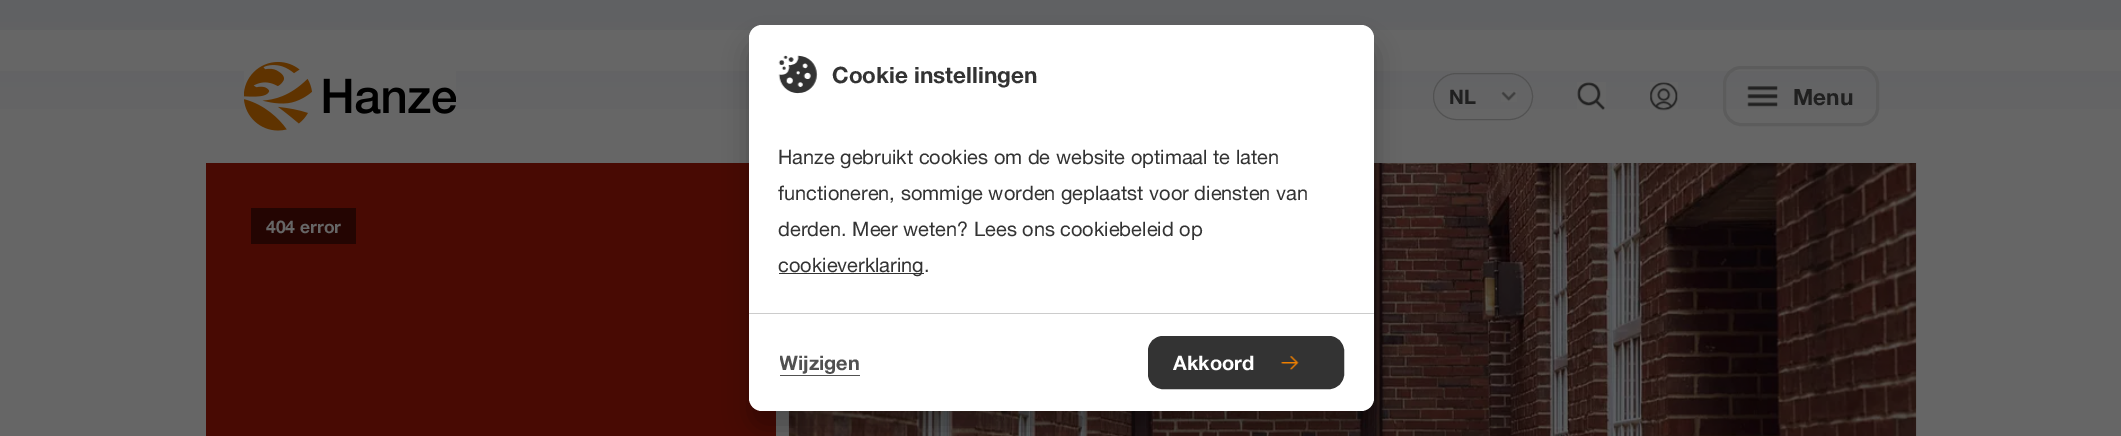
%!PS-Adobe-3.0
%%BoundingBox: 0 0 2121 436
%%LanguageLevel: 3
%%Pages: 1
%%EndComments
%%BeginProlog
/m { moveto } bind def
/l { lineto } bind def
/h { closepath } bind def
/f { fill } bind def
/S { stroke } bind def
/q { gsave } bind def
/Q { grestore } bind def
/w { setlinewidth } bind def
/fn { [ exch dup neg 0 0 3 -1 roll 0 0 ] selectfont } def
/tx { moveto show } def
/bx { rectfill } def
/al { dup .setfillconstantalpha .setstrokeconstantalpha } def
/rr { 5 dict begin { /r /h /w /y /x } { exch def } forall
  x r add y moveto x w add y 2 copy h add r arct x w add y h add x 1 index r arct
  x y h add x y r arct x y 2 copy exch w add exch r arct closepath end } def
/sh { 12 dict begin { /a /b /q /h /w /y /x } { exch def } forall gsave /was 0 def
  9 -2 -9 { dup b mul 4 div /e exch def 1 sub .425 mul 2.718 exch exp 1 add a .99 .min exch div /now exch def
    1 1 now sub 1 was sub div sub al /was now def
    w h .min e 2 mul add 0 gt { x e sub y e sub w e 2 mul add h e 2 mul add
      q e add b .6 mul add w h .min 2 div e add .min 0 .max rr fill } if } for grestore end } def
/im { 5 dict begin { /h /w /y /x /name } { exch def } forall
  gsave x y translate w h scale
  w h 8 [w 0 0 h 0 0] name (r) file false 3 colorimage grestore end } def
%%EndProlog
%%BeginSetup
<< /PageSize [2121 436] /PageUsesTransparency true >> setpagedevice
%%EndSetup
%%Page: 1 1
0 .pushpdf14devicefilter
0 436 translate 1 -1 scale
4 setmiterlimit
1 setgray
0 0 2121 436 bx
q 0 0 m 2121 0 l 2121 436 l 0 436 l h clip newpath
<< /ShadingType 2 /ColorSpace /DeviceRGB /Coords [1061 0 1061 436] /Extend [true true] /Function << /FunctionType 3 /Domain [0 1] /Functions [<< /FunctionType 2 /Domain [0 1] /C0 [0.376 0.38 0.388] /C1 [0.4 0.4 0.4] /N 1 >> << /FunctionType 2 /Domain [0 1] /C0 [0.4 0.4 0.4] /C1 [0.4 0.4 0.4] /N 1 >>] /Bounds [0.28] /Encode [0 1 0 1] >> >> shfill Q
0.4 setgray
0 30 2121 41 bx
0.282 0.039 0.012 setrgbcolor
206 163 570 273 bx
(image7.raw) 788 163 1129 273 im
0 setgray
749 43 625 386 13 12.5 0.25 sh
1 setgray
749 25 625 386 13 rr f
(image0.raw) 778 55 40 39 im
/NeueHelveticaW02-Bold 22.5 fn
0.2 setgray
(Cookie instellingen) 832 83 tx
/NeueHelveticaW02-Regular 20 fn
(Hanze gebruikt cookies om de website optimaal te laten) 778 164 tx
(functioneren, sommige worden geplaatst voor diensten van) 778 200 tx
(derden. Meer weten? Lees ons cookiebeleid op) 778 236 tx
779 273 145 1 bx
(cookieverklaring.) 778 272 tx
0.8 setgray
749 313 625 1 bx
q
780 338 80 50 14 rr clip newpath
/NeueHelveticaW02-Bold 20 fn
0.318 setgray
(Wijzigen) 779 370 tx
Q
0.318 setgray
780 375 80 1 bx
0.2 setgray
1148.5 336.5 195 52 14.5 rr q f Q
S
/NeueHelveticaW02-Bold 20 fn
1 setgray
(Akkoord) 1173 370 tx
(image1.raw) 1281 356 18 14 im
(image2.raw) 244 61 212 70 im
0.322 setgray
1433.5 73.5 99 46 23 rr S
0.125 setgray
(NL) 1449 104 tx
(image3.raw) 1501 91 16 11 im
(image4.raw) 1577 82 29 28 im
(image5.raw) 1650 82 28 29 im
0.361 setgray
3 w
1724.5 67.5 153 57 16.5 rr S
(image6.raw) 1747 86 31 21 im
/NeueHelveticaW02-Bold 22.5 fn
0.125 setgray
(Menu) 1793 105 tx
0.141 0.02 0.008 setrgbcolor
251 208 105 36 bx
/NeueHelveticaW02-Bold 17.5 fn
0.4 setgray
(404 error) 266 233 tx
.poppdf14devicefilter showpage
%%EOF
